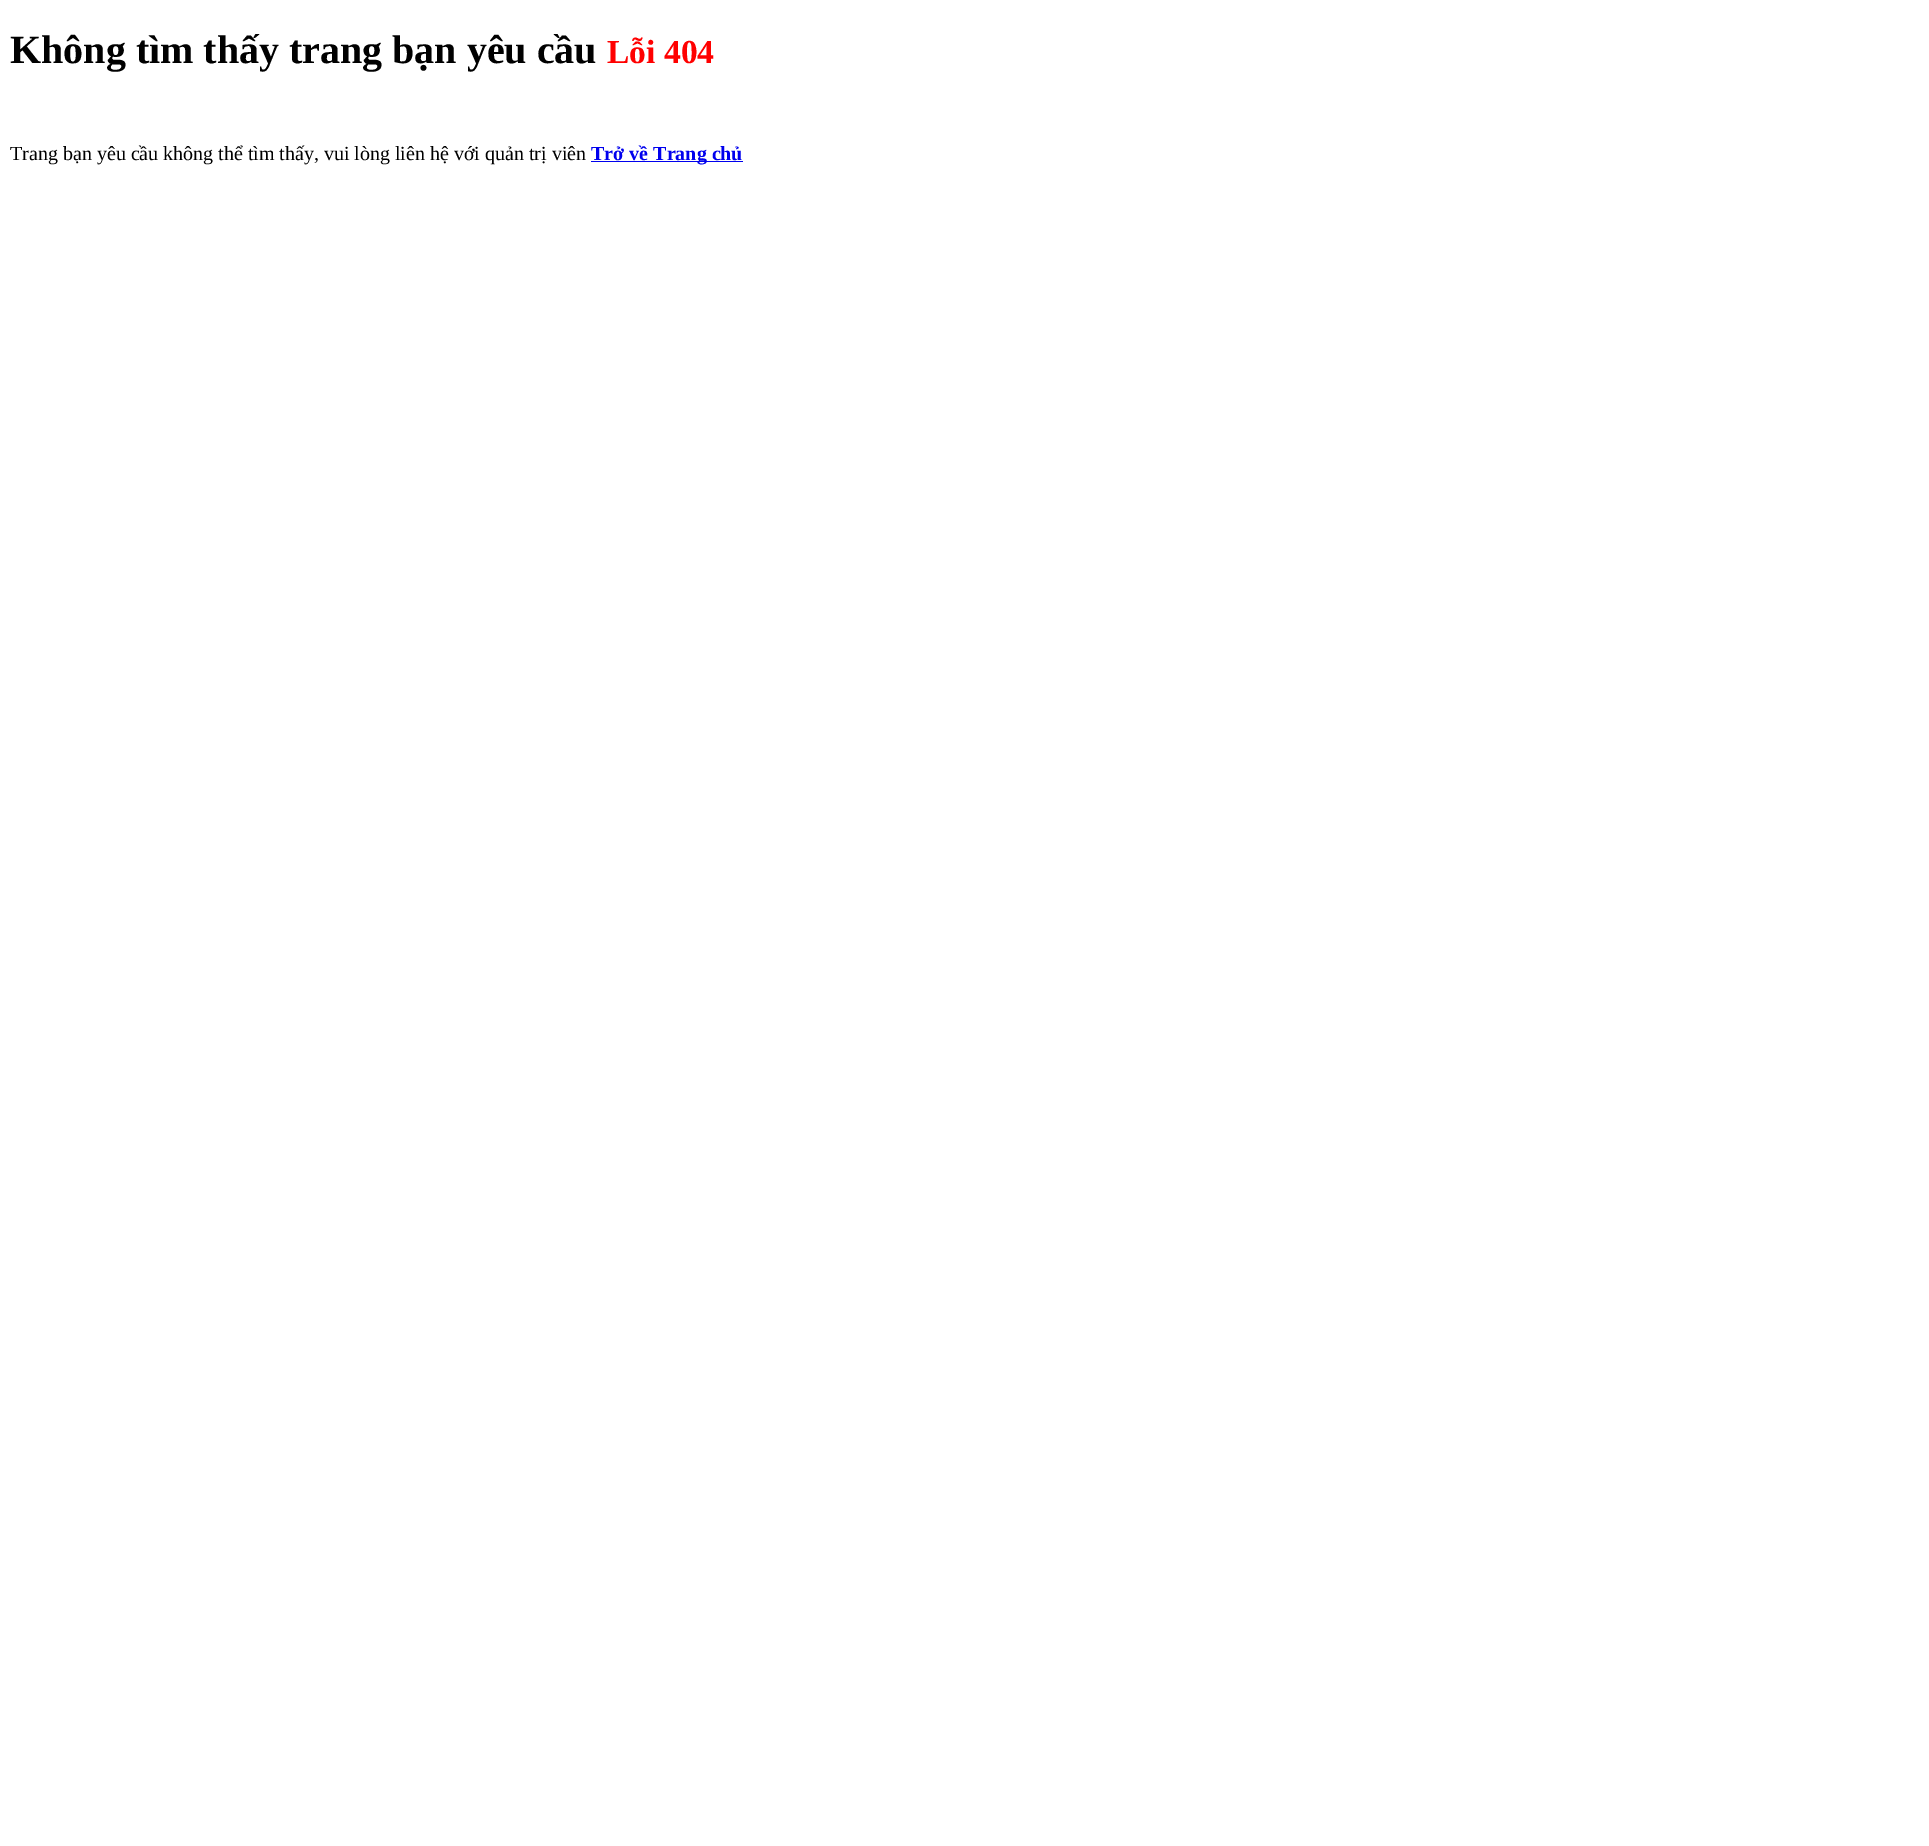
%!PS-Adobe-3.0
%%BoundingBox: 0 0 1929 1846
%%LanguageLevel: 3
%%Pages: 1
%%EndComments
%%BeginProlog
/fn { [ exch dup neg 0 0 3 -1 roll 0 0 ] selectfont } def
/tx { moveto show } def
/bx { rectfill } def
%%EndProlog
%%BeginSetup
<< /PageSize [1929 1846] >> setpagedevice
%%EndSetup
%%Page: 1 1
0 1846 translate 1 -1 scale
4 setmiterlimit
1 setgray
0 0 1929 1846 bx
/LiberationSerif-Bold 40 fn
0 setgray
(Không tìm thấy trang bạn yêu cầu) 10 63 tx
/LiberationSerif-Bold 33.5 fn
1 0 0 setrgbcolor
(Lỗi 404) 607 63 tx
/LiberationSerif-Regular 20 fn
0 setgray
(Trang bạn yêu cầu không thể tìm thấy, vui lòng liên hệ với quản trị viên) 10 160 tx
0 0 0.933 setrgbcolor
591 161 152 1 bx
/LiberationSerif-Bold 20 fn
(Trở về Trang chủ) 591 160 tx
showpage
%%EOF
